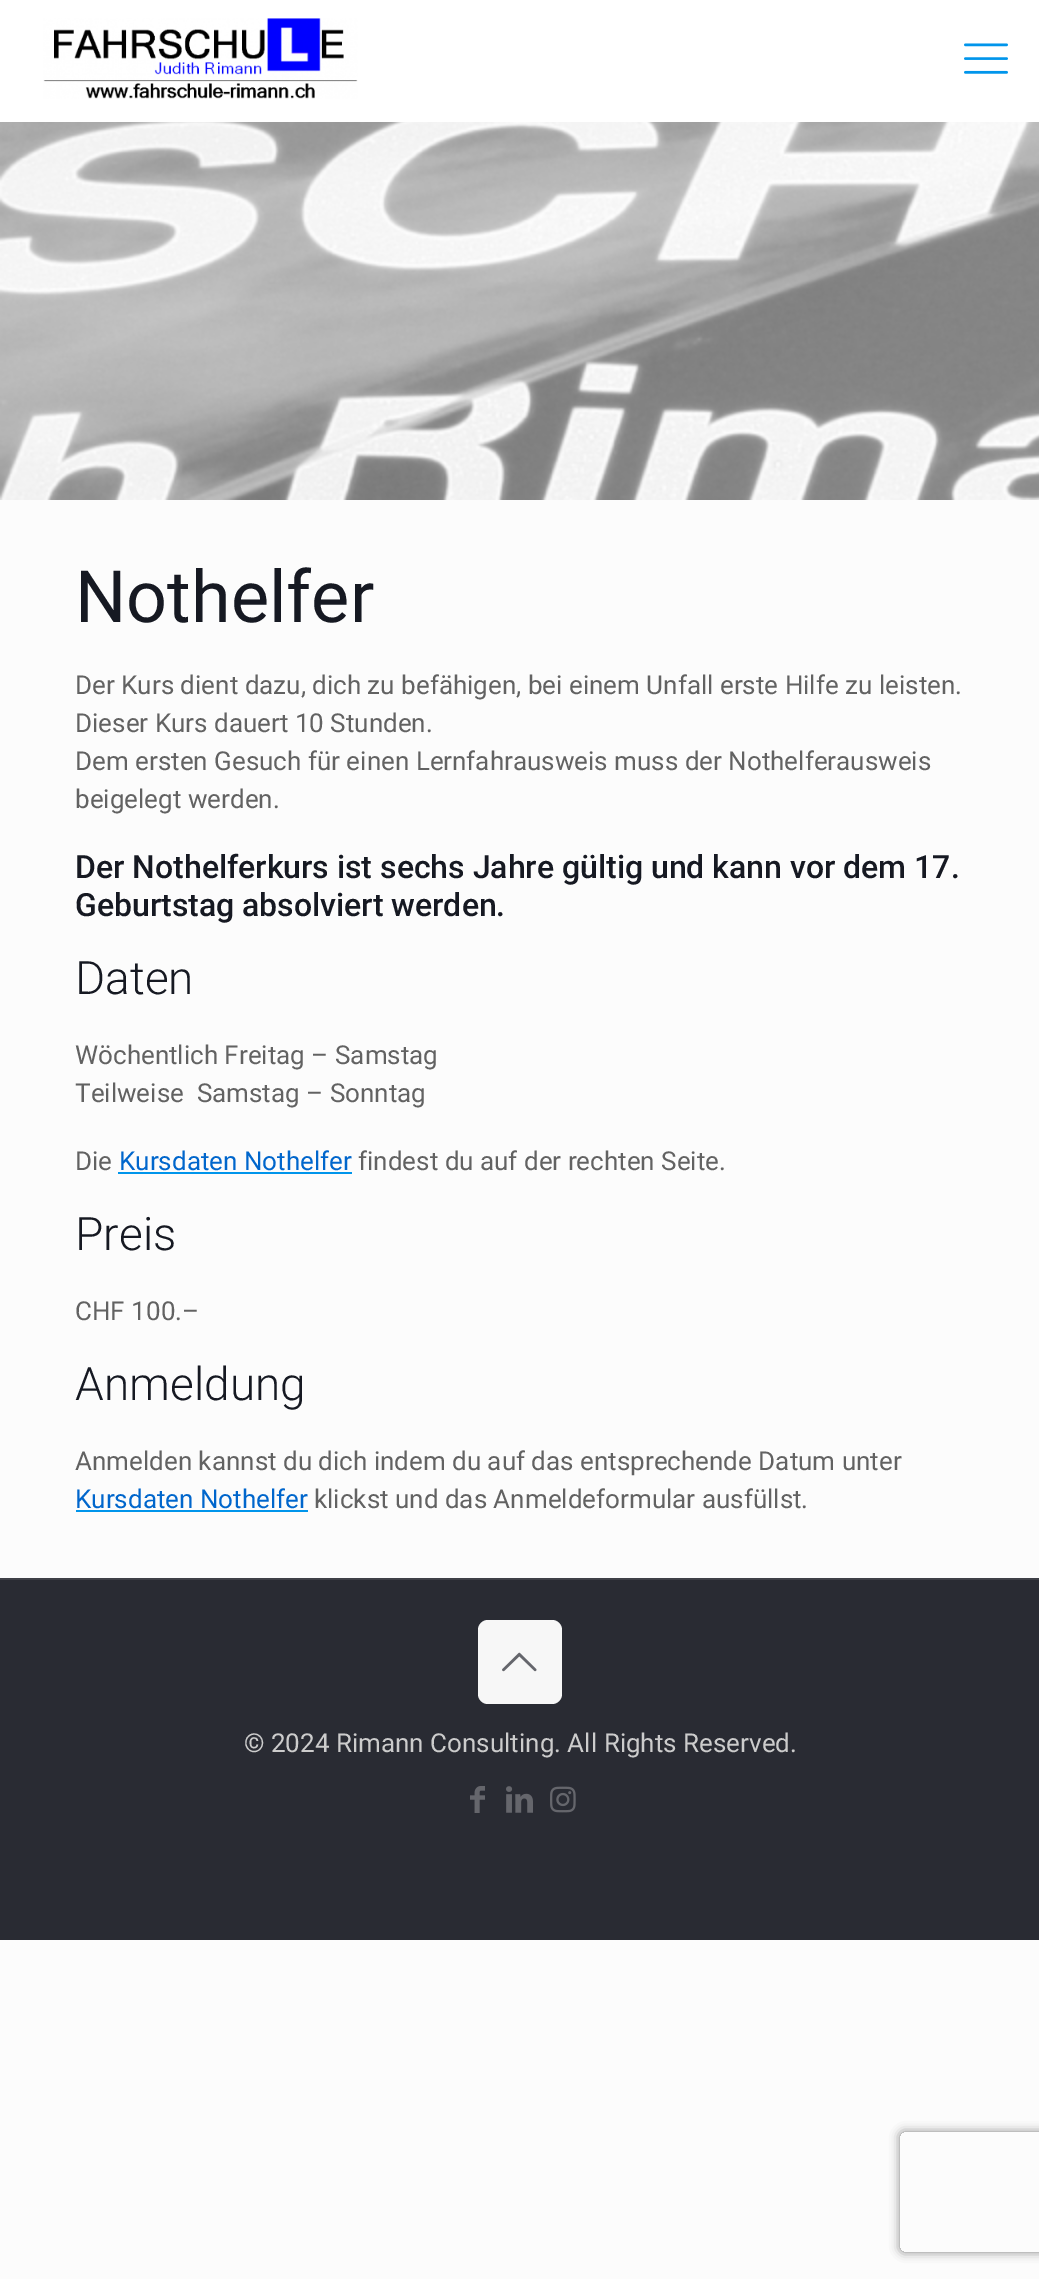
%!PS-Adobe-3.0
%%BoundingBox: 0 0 1039 2279
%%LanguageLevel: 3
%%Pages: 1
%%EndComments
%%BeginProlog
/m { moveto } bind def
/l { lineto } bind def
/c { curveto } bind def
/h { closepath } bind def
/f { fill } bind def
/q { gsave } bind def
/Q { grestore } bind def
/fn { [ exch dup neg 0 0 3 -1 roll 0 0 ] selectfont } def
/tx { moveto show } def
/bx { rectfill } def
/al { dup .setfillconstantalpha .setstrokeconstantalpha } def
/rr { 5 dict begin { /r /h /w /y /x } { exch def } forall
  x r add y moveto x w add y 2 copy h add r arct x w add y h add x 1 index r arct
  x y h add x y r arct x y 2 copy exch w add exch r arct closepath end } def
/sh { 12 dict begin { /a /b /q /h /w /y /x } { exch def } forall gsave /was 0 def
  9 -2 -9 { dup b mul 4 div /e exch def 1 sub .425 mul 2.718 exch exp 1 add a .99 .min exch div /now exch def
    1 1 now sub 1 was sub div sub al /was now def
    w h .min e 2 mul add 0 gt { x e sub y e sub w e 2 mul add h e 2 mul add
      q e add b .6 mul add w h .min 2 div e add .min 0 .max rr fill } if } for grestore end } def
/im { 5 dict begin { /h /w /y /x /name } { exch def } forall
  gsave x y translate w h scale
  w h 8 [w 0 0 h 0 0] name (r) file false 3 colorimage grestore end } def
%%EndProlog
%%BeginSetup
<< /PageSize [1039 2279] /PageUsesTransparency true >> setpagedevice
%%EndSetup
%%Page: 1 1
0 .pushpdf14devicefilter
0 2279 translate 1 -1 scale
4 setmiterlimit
0.988 setgray
0 0 1039 2279 bx
(image0.raw) 0 122 1039 378 im
1 setgray
0 0 1039 122 bx
(image1.raw) 43 18 315 81 im
(image2.raw) 964 43 44 31 im
/Roboto-Regular 72 fn
0.086 0.098 0.133 setrgbcolor
(Nothelfer) 75 622 tx
/Roboto-Regular 26 fn
0.384 setgray
(Der Kurs dient dazu, dich zu befähigen, bei einem Unfall erste Hilfe zu leisten.) 75 694 tx
(Dieser Kurs dauert 10 Stunden.) 75 732 tx
(Dem ersten Gesuch für einen Lernfahrausweis muss der Nothelferausweis) 75 770 tx
(beigelegt werden.) 75 808 tx
/Roboto-Medium 32 fn
0.086 0.098 0.133 setrgbcolor
(Der Nothelferkurs ist sechs Jahre gültig und kann vor dem 17.) 75 878 tx
(Geburtstag absolviert werden.) 75 916 tx
/Roboto-Light 46 fn
(Daten) 75 994 tx
/Roboto-Regular 26 fn
0.384 setgray
(Wöchentlich Freitag – Samstag) 75 1064 tx
(Teilweise  Samstag – Sonntag) 75 1102 tx
(Die) 75 1170 tx
0 0.4 0.8 setrgbcolor
(Kursdaten Nothelfer) 119 1170 tx
0 0.584 0.922 setrgbcolor
118 1172 234 2 bx
0.384 setgray
(findest du auf der rechten Seite.) 358 1170 tx
/Roboto-Light 46 fn
0.086 0.098 0.133 setrgbcolor
(Preis) 75 1250 tx
/Roboto-Regular 26 fn
0.384 setgray
(CHF 100.–) 75 1320 tx
/Roboto-Light 46 fn
0.086 0.098 0.133 setrgbcolor
(Anmeldung) 75 1400 tx
/Roboto-Regular 26 fn
0.384 setgray
(Anmelden kannst du dich indem du auf das entsprechende Datum unter) 75 1470 tx
0 0.4 0.8 setrgbcolor
(Kursdaten Nothelfer) 75 1508 tx
0 0.584 0.922 setrgbcolor
76 1510 232 2 bx
0.384 setgray
(klickst und das Anmeldeformular ausfüllst.) 314 1508 tx
0.161 0.169 0.2 setrgbcolor
0 1580 1039 360 bx
0.243 0.251 0.278 setrgbcolor
0 1578 1039 2 bx
0.969 setgray
478 1620 84 84 10 rr f
(image3.raw) 502 1652 35 20 im
0.8 setgray
(© 2024 Rimann Consulting. All Rights Reserved.) 244 1752 tx
(image4.raw) 470 1786 15 27 im
(image5.raw) 506 1786 27 27 im
(image6.raw) 550 1786 26 27 im
q
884 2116 m 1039 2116 l 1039 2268 l 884 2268 l h 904 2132 m 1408 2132 l 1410 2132 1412 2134 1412 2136 c 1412 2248 l 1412 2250 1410 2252 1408 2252 c 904 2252 l 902 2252 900 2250 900 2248 c 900 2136 l 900 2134 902 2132 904 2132 c h eoclip newpath
0.502 setgray
900 2132 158 120 4 5 1 sh
Q
.poppdf14devicefilter showpage
%%EOF
